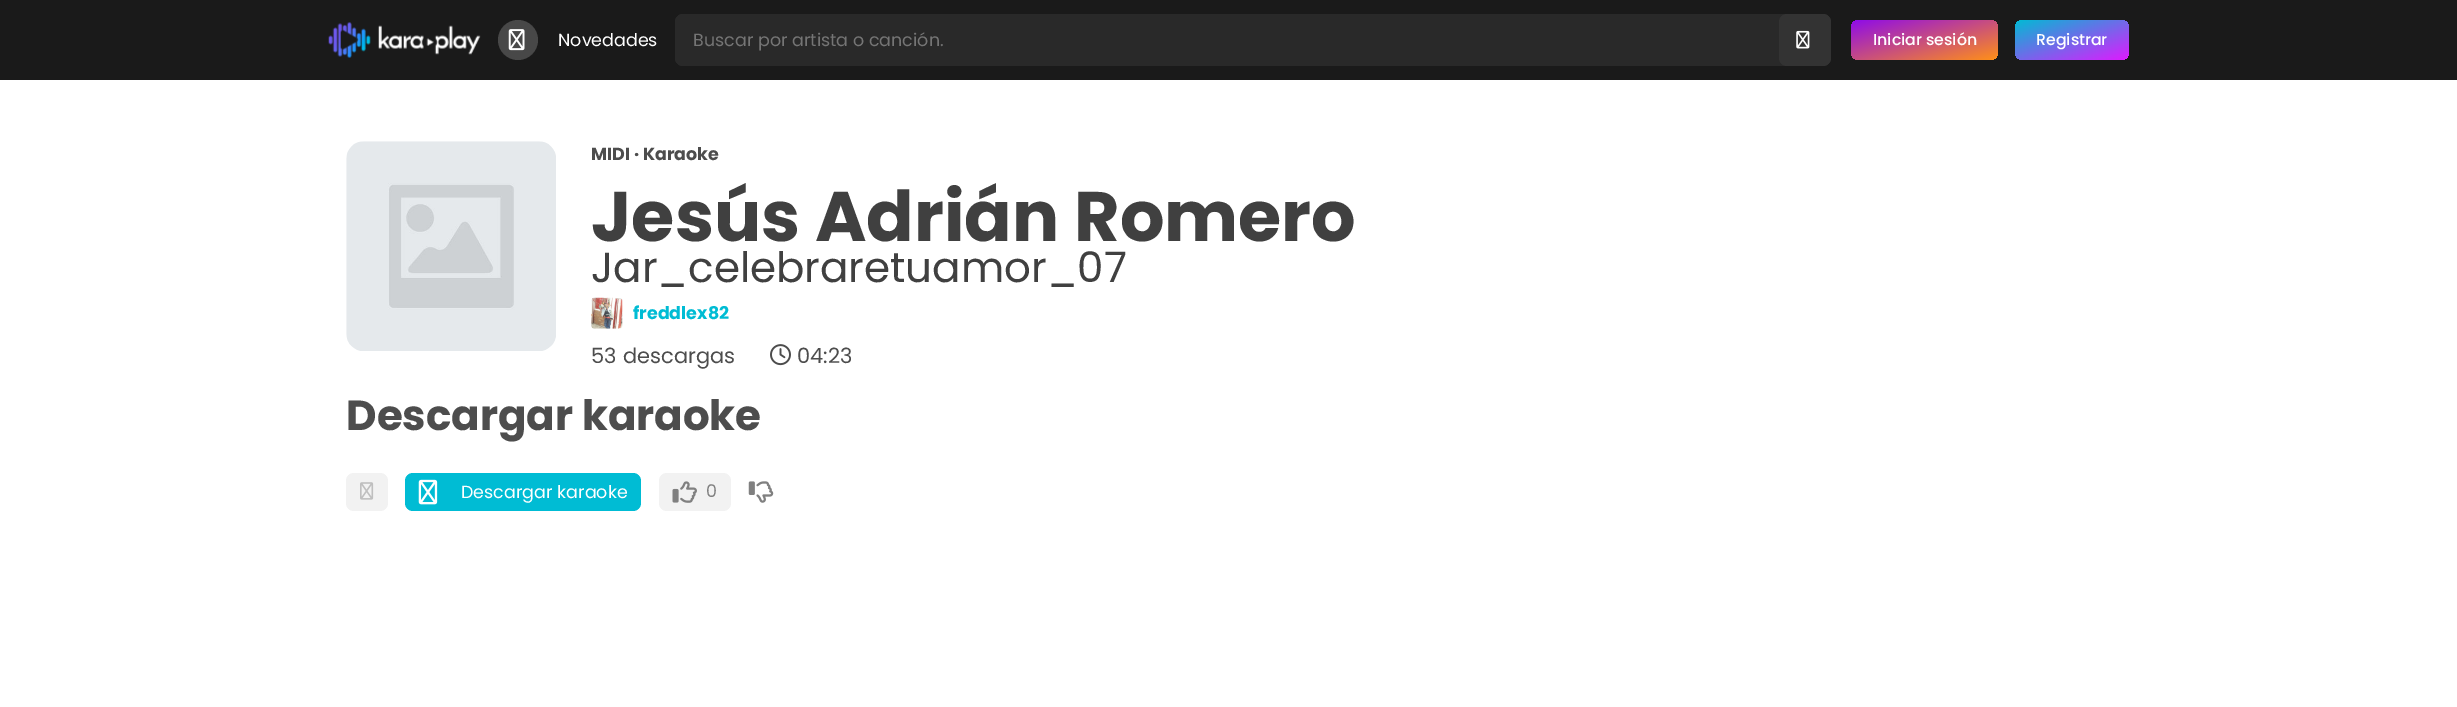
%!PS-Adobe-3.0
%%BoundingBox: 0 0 2457 707
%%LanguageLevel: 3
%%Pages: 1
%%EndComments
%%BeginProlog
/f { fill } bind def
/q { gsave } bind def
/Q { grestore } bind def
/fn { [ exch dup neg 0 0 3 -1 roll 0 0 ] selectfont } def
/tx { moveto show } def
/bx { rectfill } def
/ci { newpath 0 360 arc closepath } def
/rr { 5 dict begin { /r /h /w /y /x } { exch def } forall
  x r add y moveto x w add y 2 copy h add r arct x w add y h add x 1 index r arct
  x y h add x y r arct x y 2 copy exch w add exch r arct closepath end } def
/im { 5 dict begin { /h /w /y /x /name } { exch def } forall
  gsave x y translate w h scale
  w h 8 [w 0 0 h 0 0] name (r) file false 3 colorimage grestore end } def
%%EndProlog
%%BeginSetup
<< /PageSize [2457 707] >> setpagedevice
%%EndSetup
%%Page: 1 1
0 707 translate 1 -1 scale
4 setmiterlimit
1 setgray
0 0 2457 707 bx
0.102 setgray
0 0 2457 80 bx
(image0.raw) 328 22 43 36 im
(image1.raw) 378 25 103 30 im
0.282 setgray
518 40 20 ci f
(image2.raw) 508 29 17 22 im
/Poppins-Regular 17.5 fn
1 setgray
(Novedades) 558 46 tx
0.161 setgray
675 14 1156 52 8 rr f
675 14 1104 52 8 rr f
0.459 setgray
(Buscar por artista o canción.) 693 46 tx
0.2 setgray
1779 14 52 52 8 rr f
(image3.raw) 1796 30 14 19 im
q 1851 20 147 40 8 rr clip newpath
<< /ShadingType 2 /ColorSpace /DeviceRGB /Coords [1914 2.8 1935 77] /Extend [true true] /Function << /FunctionType 2 /Domain [0 1] /C0 [0.561 0.047 0.91] /C1 [1 0.561 0.098] /N 1 >> >> shfill Q
/Poppins-Medium 15.75 fn
1 setgray
(Iniciar sesión) 1873 45 tx
q 2015 20 114 40 8 rr clip newpath
<< /ShadingType 2 /ColorSpace /DeviceRGB /Coords [2059 4.4 2084 76] /Extend [true true] /Function << /FunctionType 2 /Domain [0 1] /C0 [0 0.737 0.831] /C1 [0.878 0.098 1] /N 1 >> >> shfill Q
(Registrar) 2036 45 tx
(image4.raw) 346 141 210 210 im
/Poppins-Bold 17.5 fn
0.302 setgray
(MIDI · Karaoke) 591 160 tx
/Poppins-Bold 70 fn
0.251 setgray
(Jesús Adrián Romero) 591 241 tx
/Poppins-Regular 42 fn
(Jar_celebraretuamor_07) 591 282 tx
(image5.raw) 591 297 32 32 im
/Poppins-Bold 17.5 fn
0 0.737 0.831 setrgbcolor
(freddlex82) 633 319 tx
/Poppins-Regular 21 fn
0.302 setgray
(53) 591 363 tx
(descargas) 623 363 tx
(image6.raw) 770 344 21 22 im
(04:23) 797 363 tx
/Poppins-Bold 42 fn
(Descargar karaoke) 346 430 tx
0.949 setgray
346 473 42 38 8 rr f
(image7.raw) 360 482 14 18 im
0 0.737 0.831 setrgbcolor
405 473 236 38 8 rr f
(image8.raw) 418 479 20 26 im
/Poppins-Regular 17.5 fn
1 setgray
(Descargar karaoke) 461 498 tx
0.949 setgray
659 473 72 38 8 rr f
(image9.raw) 672 481 25 22 im
0.502 setgray
(0) 706 497 tx
(image10.raw) 748 481 26 22 im
showpage
%%EOF
